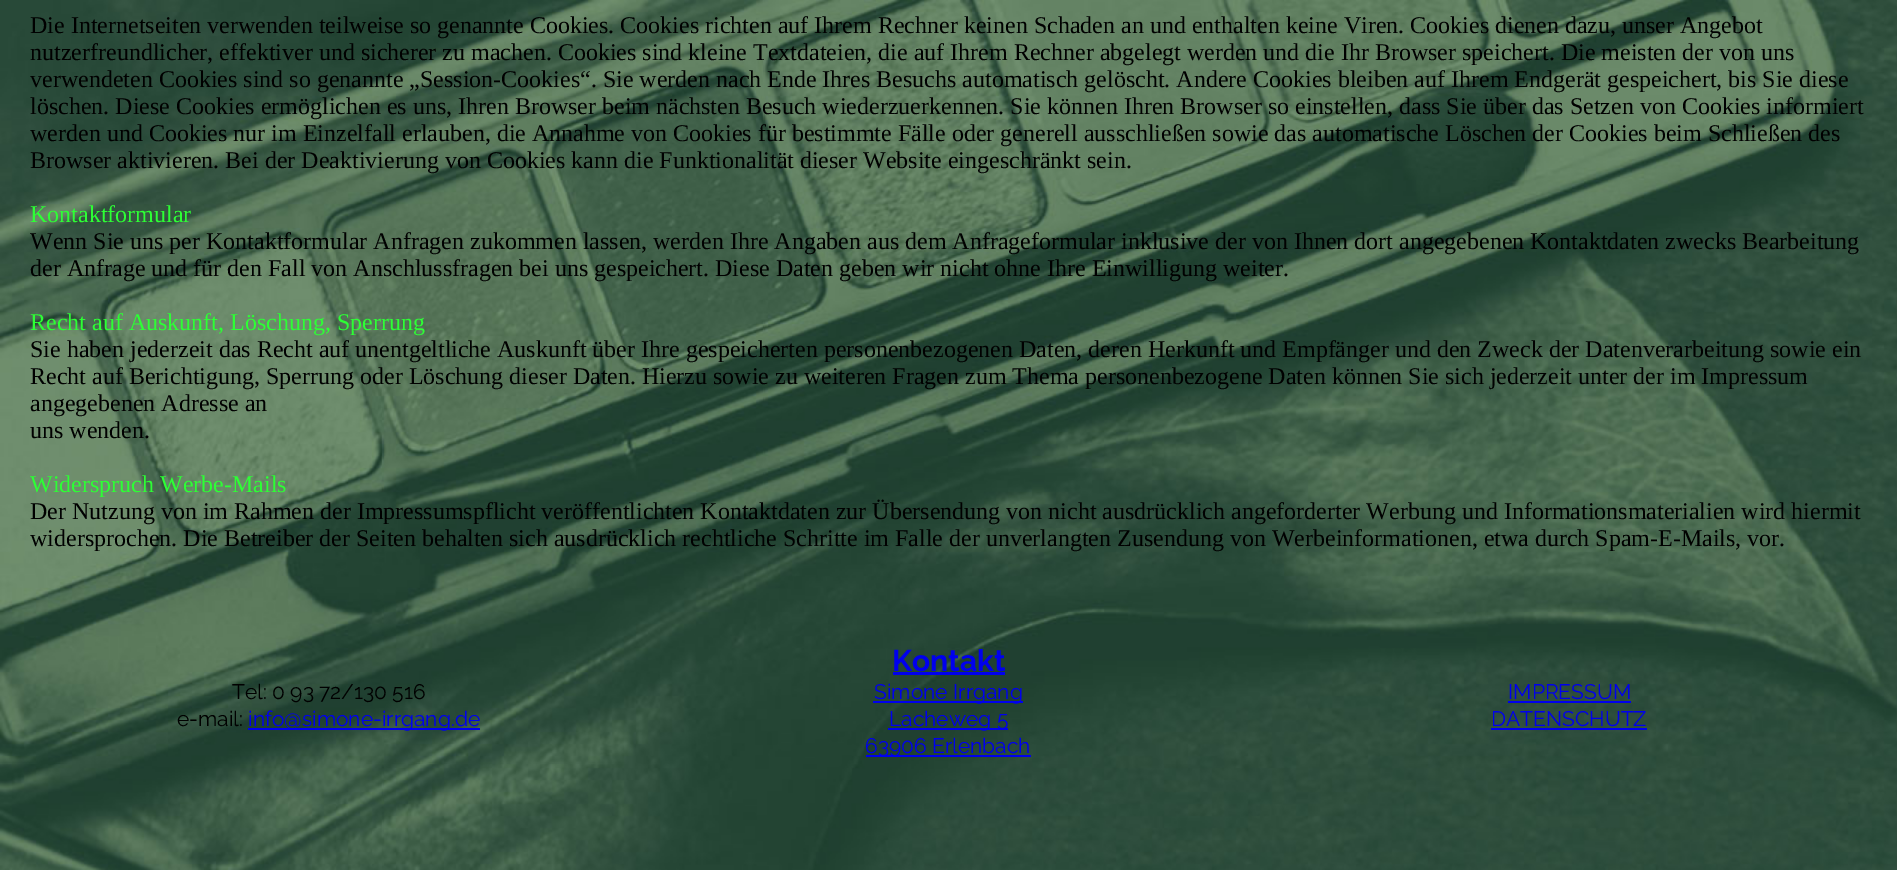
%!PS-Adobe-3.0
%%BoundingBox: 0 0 1897 870
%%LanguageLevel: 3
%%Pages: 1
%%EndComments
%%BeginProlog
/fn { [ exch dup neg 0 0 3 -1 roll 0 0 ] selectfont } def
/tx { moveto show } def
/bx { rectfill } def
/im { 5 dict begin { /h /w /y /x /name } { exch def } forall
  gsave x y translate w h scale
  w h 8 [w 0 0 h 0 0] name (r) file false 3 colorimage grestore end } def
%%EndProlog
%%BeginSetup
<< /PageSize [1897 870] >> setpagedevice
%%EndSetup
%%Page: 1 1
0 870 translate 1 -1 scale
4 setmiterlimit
1 setgray
0 0 1897 870 bx
(image0.raw) 0 0 1897 870 im
/LiberationSerif-Regular 24 fn
0 setgray
(Die Internetseiten verwenden teilweise so genannte Cookies. Cookies richten auf Ihrem Rechner keinen Schaden an und enthalten keine Viren. Cookies dienen dazu, unser Angebot) 30 33 tx
(nutzerfreundlicher, effektiver und sicherer zu machen. Cookies sind kleine Textdateien, die auf Ihrem Rechner abgelegt werden und die Ihr Browser speichert. Die meisten der von uns) 30 60 tx
(verwendeten Cookies sind so genannte „Session-Cookies“. Sie werden nach Ende Ihres Besuchs automatisch gelöscht. Andere Cookies bleiben auf Ihrem Endgerät gespeichert, bis Sie diese) 30 87 tx
(löschen. Diese Cookies ermöglichen es uns, Ihren Browser beim nächsten Besuch wiederzuerkennen. Sie können Ihren Browser so einstellen, dass Sie über das Setzen von Cookies informiert) 30 114 tx
(werden und Cookies nur im Einzelfall erlauben, die Annahme von Cookies für bestimmte Fälle oder generell ausschließen sowie das automatische Löschen der Cookies beim Schließen des) 30 141 tx
(Browser aktivieren. Bei der Deaktivierung von Cookies kann die Funktionalität dieser Website eingeschränkt sein.) 30 168 tx
0.176 1 0.208 setrgbcolor
(Kontaktformular) 30 222 tx
0 setgray
(Wenn Sie uns per Kontaktformular Anfragen zukommen lassen, werden Ihre Angaben aus dem Anfrageformular inklusive der von Ihnen dort angegebenen Kontaktdaten zwecks Bearbeitung) 30 249 tx
(der Anfrage und für den Fall von Anschlussfragen bei uns gespeichert. Diese Daten geben wir nicht ohne Ihre Einwilligung weiter.) 30 276 tx
0.176 1 0.208 setrgbcolor
(Recht auf Auskunft, Löschung, Sperrung) 30 330 tx
0 setgray
(Sie haben jederzeit das Recht auf unentgeltliche Auskunft über Ihre gespeicherten personenbezogenen Daten, deren Herkunft und Empfänger und den Zweck der Datenverarbeitung sowie ein) 30 357 tx
(Recht auf Berichtigung, Sperrung oder Löschung dieser Daten. Hierzu sowie zu weiteren Fragen zum Thema personenbezogene Daten können Sie sich jederzeit unter der im Impressum) 30 384 tx
(angegebenen Adresse an) 30 411 tx
(uns wenden.) 30 438 tx
0.176 1 0.208 setrgbcolor
(Widerspruch Werbe-Mails) 30 492 tx
0 setgray
(Der Nutzung von im Rahmen der Impressumspflicht veröffentlichten Kontaktdaten zur Übersendung von nicht ausdrücklich angeforderter Werbung und Informationsmaterialien wird hiermit) 30 519 tx
(widersprochen. Die Betreiber der Seiten behalten sich ausdrücklich rechtliche Schritte im Falle der unverlangten Zusendung von Werbeinformationen, etwa durch Spam-E-Mails, vor.) 30 546 tx
/Raleway-Bold 30 fn
0 0 0.933 setrgbcolor
(Kontakt) 892 671 tx
893 672 112 3 bx
/Raleway-Regular 21 fn
0 setgray
(Tel: 0 93 72/130 516) 232 699 tx
(e-mail:) 177 726 tx
0 0 0.933 setrgbcolor
248 728 232 2 bx
(info@simone-irrgang.de) 248 726 tx
873 701 150 2 bx
(Simone Irrgang) 874 699 tx
888 728 120 2 bx
(Lacheweg 5) 889 726 tx
866 755 165 2 bx
(63906 Erlenbach) 865 753 tx
(IMPRESSUM) 1508 699 tx
1508 701 123 2 bx
(DATENSCHUTZ) 1491 726 tx
1491 728 156 2 bx
showpage
%%EOF
